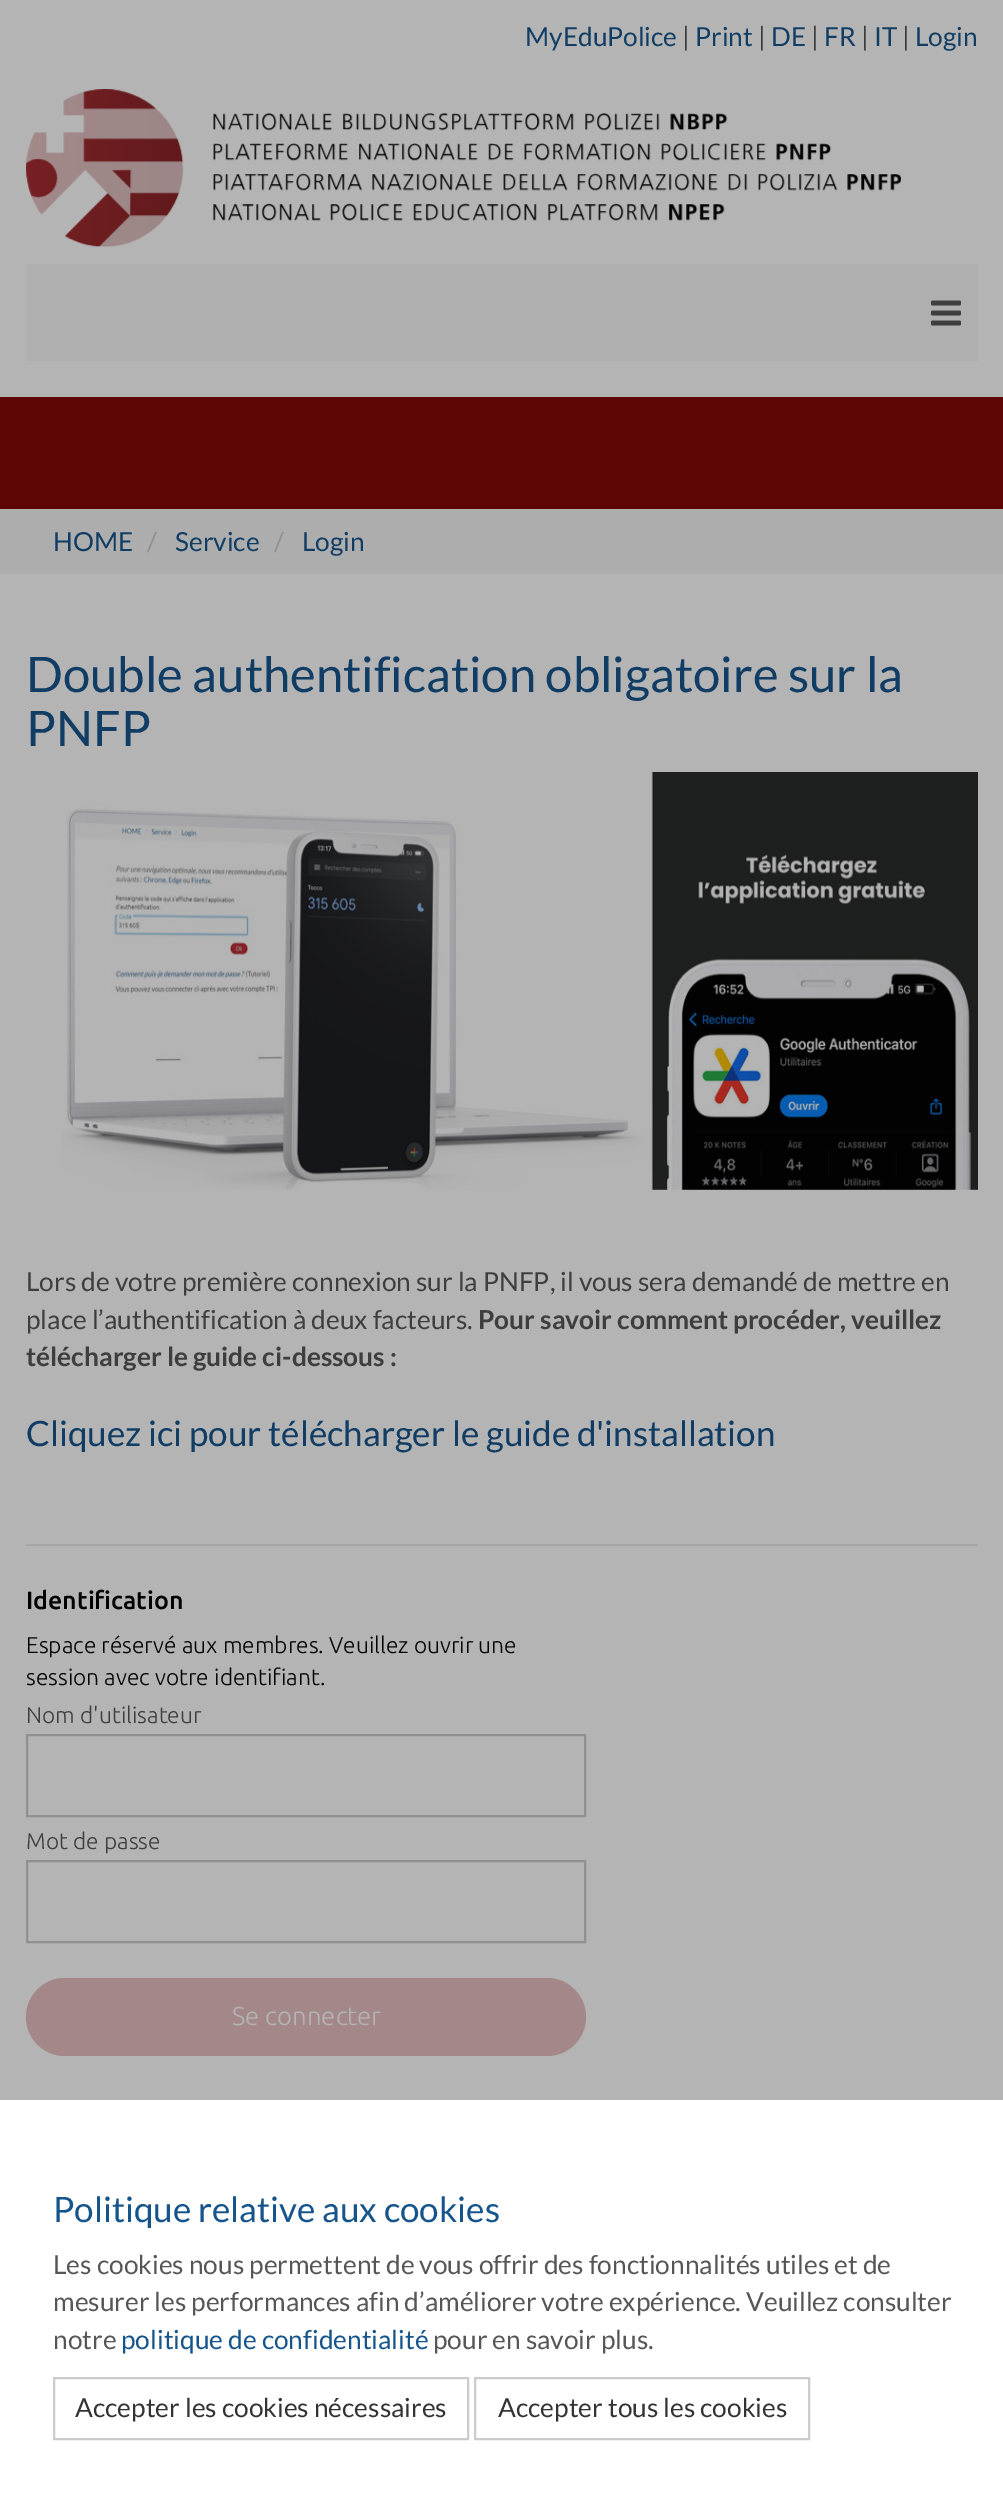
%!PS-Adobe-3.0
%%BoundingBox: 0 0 1003 2508
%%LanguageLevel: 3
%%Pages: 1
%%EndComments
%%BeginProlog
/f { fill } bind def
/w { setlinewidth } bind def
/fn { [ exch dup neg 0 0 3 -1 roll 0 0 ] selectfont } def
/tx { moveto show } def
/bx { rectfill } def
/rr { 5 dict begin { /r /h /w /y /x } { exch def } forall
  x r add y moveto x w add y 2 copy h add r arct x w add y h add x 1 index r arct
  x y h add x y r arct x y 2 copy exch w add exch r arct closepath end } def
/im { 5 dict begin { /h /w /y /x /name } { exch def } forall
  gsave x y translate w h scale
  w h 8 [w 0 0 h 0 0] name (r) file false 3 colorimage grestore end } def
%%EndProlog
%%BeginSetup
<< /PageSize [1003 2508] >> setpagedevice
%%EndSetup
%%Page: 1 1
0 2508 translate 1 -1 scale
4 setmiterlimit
0.706 setgray
0 0 1003 2508 bx
/Lato-Regular 26.25 fn
0.067 0.239 0.392 setrgbcolor
(MyEduPolice) 525 46 tx
0.243 setgray
(|) 682 46 tx
0.067 0.239 0.392 setrgbcolor
(Print) 695 46 tx
0.243 setgray
(|) 758 46 tx
0.067 0.239 0.392 setrgbcolor
(DE) 771 46 tx
0.243 setgray
(|) 811 46 tx
0.067 0.239 0.392 setrgbcolor
(FR) 824 46 tx
0.243 setgray
(|) 861 46 tx
0.067 0.239 0.392 setrgbcolor
(IT) 874 46 tx
0.243 setgray
(|) 902 46 tx
0.067 0.239 0.392 setrgbcolor
(Login) 915 46 tx
(image0.raw) 26 89 875 158 im
0.686 setgray
26 264 952 97 bx
(image1.raw) 931 300 30 26 im
0.369 0.024 0.024 setrgbcolor
0 397 1003 112 bx
0.678 setgray
0 509 1003 65 bx
0.067 0.239 0.392 setrgbcolor
(HOME) 53 551 tx
0.565 setgray
(/) 147 551 tx
0.067 0.239 0.392 setrgbcolor
(Service) 175 551 tx
0.565 setgray
(/) 274 551 tx
0.067 0.239 0.392 setrgbcolor
(Login) 302 551 tx
/Lato-Regular 49 fn
(Double authentification obligatoire sur la) 26 692 tx
(PNFP) 26 746 tx
(image2.raw) 61 772 917 418 im
/Lato-Regular 26.25 fn
0.243 setgray
(Lors de votre première connexion sur la PNFP, il vous sera demandé de mettre en) 26 1291 tx
(place l’authentification à deux facteurs.) 26 1329 tx
/Lato-Bold 26.25 fn
(Pour savoir comment procéder, veuillez) 478 1329 tx
(télécharger le guide ci-dessous :) 26 1366 tx
/Lato-Regular 35 fn
0.067 0.239 0.392 setrgbcolor
(Cliquez ici pour télécharger le guide d'installation) 26 1446 tx
0.647 setgray
26 1544 952 2 bx
/Ubuntu-Medium 25 fn
0.008 setgray
(Identification) 26 1609 tx
/Ubuntu-Light 22.75 fn
(Espace réservé aux membres. Veuillez ouvrir une) 26 1653 tx
(session avec votre identifiant.) 26 1685 tx
0.243 setgray
(Nom d'utilisateur) 26 1723 tx
0.565 setgray
2 w
27 1735 558 81 rectstroke
0.243 setgray
(Mot de passe) 26 1849 tx
0.565 setgray
27 1861 558 81 rectstroke
0.643 0.533 0.537 setrgbcolor
26 1978 560 78 39 rr f
/Ubuntu-Light 25.75 fn
0.706 setgray
(Se connecter) 232 2025 tx
1 setgray
0 2100 1003 408 bx
/Lato-Regular 35 fn
0.086 0.333 0.549 setrgbcolor
(Politique relative aux cookies) 53 2222 tx
/Lato-Regular 26.25 fn
0.337 setgray
(Les cookies nous permettent de vous offrir des fonctionnalités utiles et de) 53 2274 tx
(mesurer les performances afin d’améliorer votre expérience. Veuillez consulter) 53 2311 tx
(notre) 53 2349 tx
0.086 0.333 0.549 setrgbcolor
(politique de confidentialité) 121 2349 tx
0.337 setgray
(pour en savoir plus.) 433 2349 tx
0.8 setgray
54 2378 414 61 rectstroke
0.2 setgray
(Accepter les cookies nécessaires) 75 2417 tx
0.8 setgray
475 2378 334 61 rectstroke
0.2 setgray
(Accepter tous les cookies) 498 2417 tx
showpage
%%EOF
